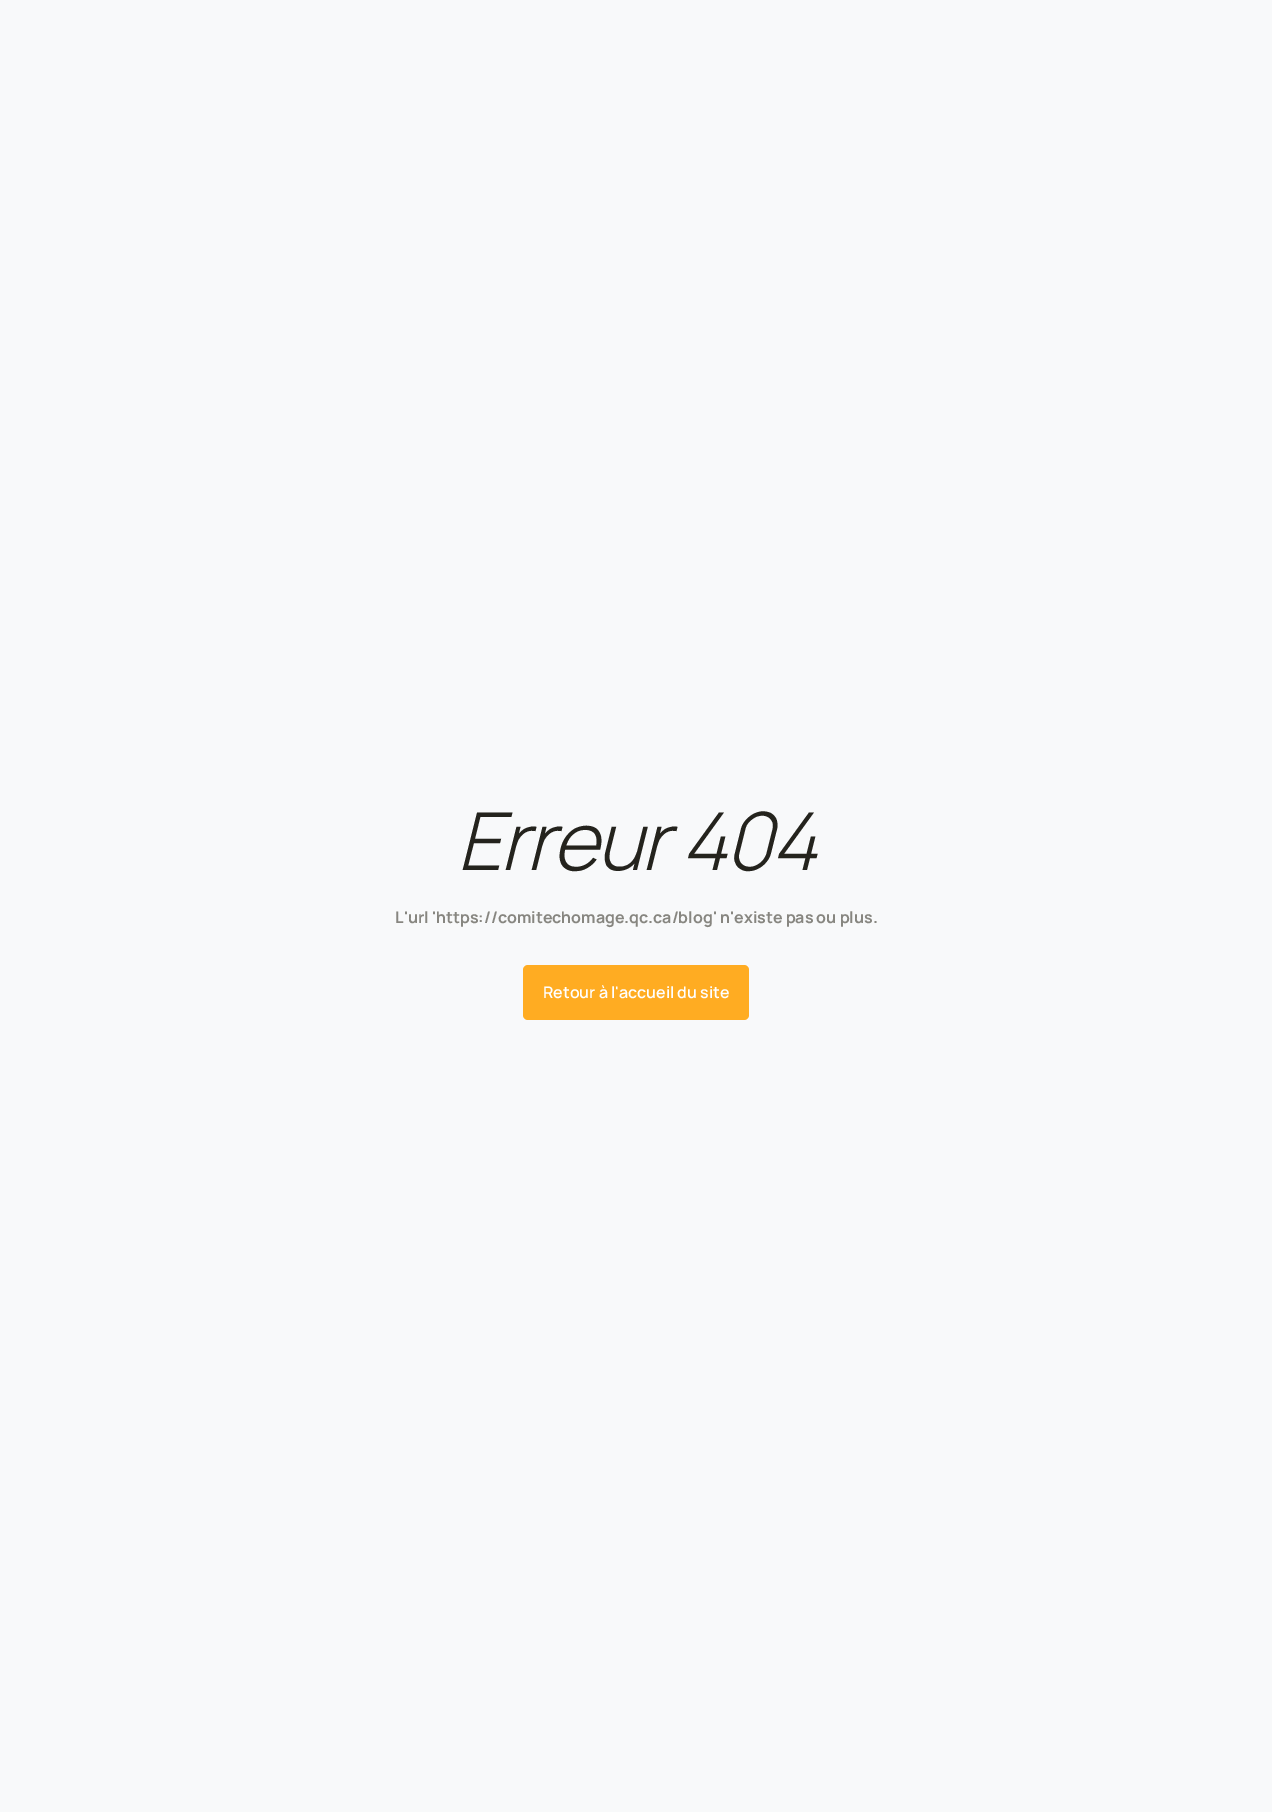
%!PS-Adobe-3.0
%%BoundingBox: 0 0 1272 1812
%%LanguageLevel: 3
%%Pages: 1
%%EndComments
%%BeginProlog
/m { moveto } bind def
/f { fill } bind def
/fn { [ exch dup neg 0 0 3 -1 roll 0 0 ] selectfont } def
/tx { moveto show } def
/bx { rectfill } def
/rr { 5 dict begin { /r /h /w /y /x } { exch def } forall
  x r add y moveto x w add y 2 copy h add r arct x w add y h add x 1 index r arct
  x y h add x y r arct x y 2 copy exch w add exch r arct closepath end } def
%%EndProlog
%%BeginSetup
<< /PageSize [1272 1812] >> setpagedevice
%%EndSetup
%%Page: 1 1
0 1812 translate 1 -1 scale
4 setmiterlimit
0.973 0.976 0.98 setrgbcolor
0 0 1272 1812 bx
/Manrope-LightItalic 80 fn
0.141 0.137 0.114 setrgbcolor
457 870 m -2 0 (Erreur 404) ashow
/Manrope-Bold 16 fn
0.529 0.525 0.502 setrgbcolor
(L'url 'https://comitechomage.qc.ca/blog' n'existe pas ou plus.) 395 923 tx
1 0.675 0.133 setrgbcolor
523 965 226 55 5 rr f
/Manrope-SemiBold 16 fn
1 setgray
(Retour à l'accueil du site) 543 998 tx
showpage
%%EOF
